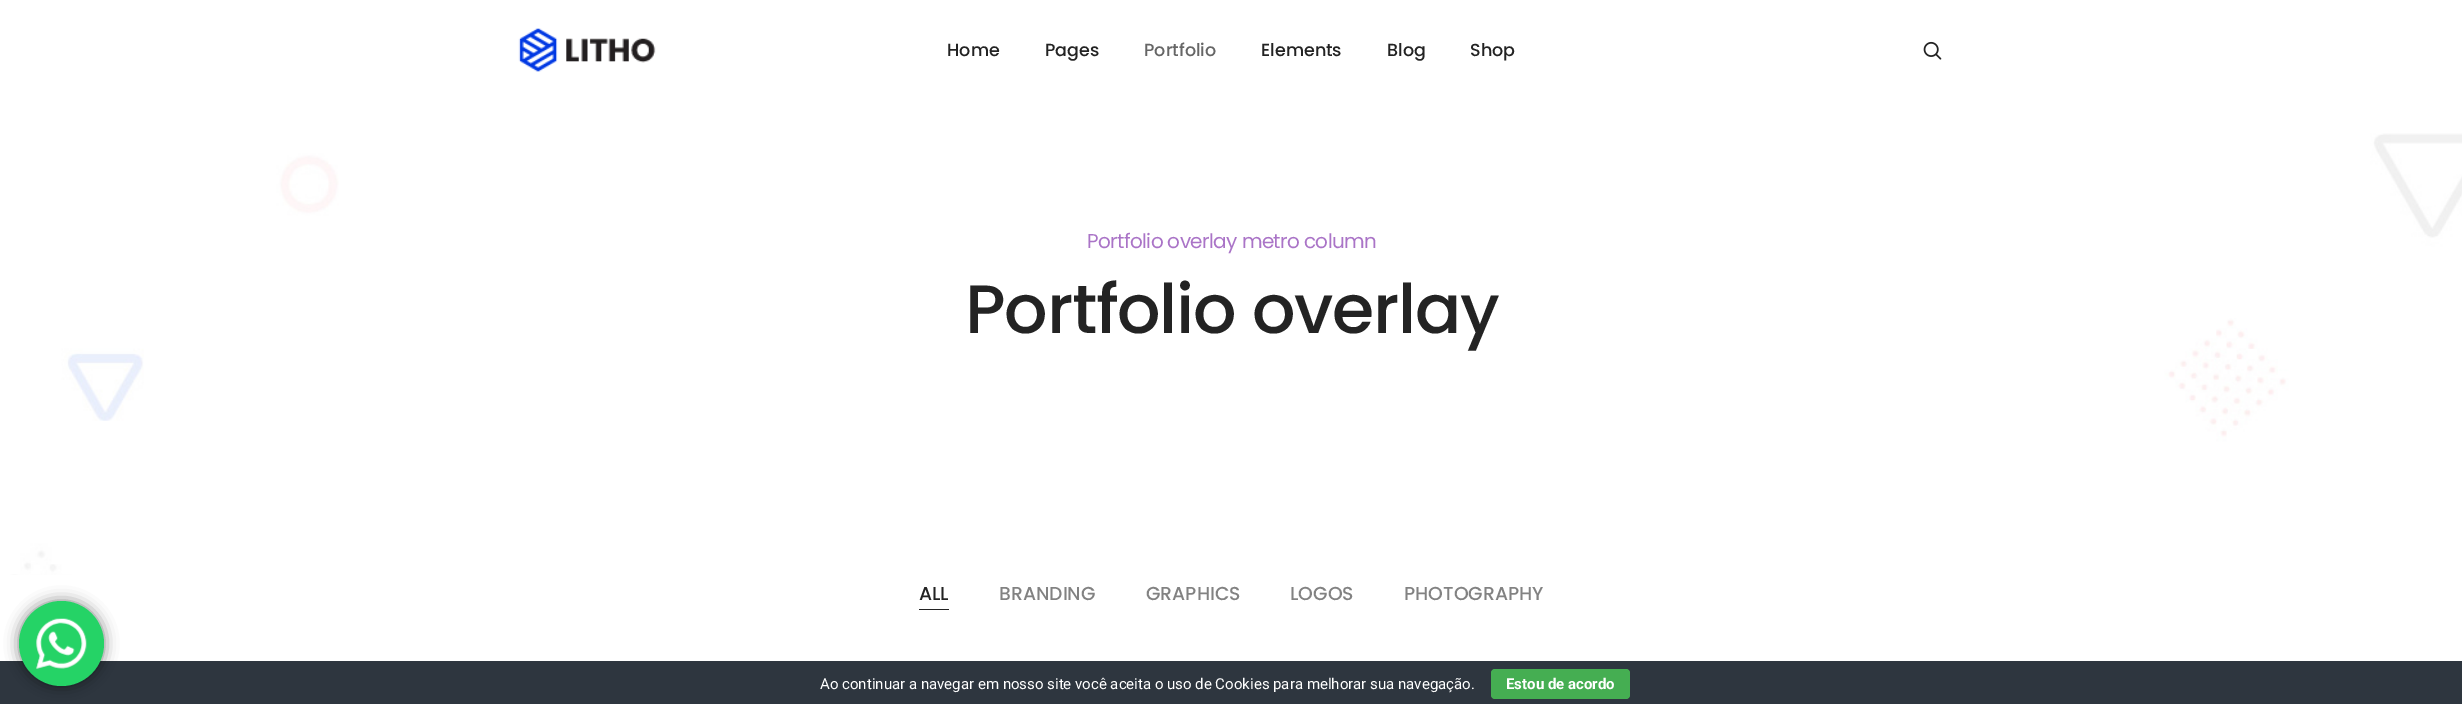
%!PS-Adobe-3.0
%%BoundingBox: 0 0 2462 704
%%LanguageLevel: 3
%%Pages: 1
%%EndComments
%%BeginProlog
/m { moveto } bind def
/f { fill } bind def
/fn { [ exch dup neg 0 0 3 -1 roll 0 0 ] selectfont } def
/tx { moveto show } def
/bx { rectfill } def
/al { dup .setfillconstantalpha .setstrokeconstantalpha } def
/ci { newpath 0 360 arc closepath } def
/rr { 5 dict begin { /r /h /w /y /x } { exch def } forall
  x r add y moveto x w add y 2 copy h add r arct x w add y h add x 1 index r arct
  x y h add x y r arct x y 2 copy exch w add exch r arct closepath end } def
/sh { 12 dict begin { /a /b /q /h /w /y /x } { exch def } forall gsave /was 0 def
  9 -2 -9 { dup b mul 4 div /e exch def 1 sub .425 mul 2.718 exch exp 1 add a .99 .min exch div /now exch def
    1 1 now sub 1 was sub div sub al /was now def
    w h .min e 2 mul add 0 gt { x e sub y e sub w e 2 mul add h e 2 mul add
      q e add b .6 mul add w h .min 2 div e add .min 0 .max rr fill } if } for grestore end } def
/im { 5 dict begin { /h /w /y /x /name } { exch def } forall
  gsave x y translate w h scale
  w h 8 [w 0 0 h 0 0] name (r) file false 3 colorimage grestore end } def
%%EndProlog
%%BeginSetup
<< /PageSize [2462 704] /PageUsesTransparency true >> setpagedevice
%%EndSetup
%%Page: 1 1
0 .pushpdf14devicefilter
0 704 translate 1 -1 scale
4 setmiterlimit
1 setgray
0 0 2462 704 bx
(image2.raw) 0 0 2462 575 im
(image0.raw) 518 28 138 44 im
/Poppins-Medium 17.5 fn
0.137 setgray
(Home) 947 56 tx
(Pages) 1045 56 tx
0.4 setgray
(Portfolio) 1144 56 tx
0.137 setgray
(Elements) 1261 56 tx
(Blog) 1387 56 tx
(Shop) 1470 56 tx
(image1.raw) 1923 41 19 19 im
/Poppins-Regular 20 fn
0.667 0.455 0.78 setrgbcolor
1087 248 m -0.6 0 (Portfolio overlay metro column) ashow
/Poppins-Medium 68.25 fn
0.137 setgray
965 333 m -1.25 0 (Portfolio overlay) ashow
/Poppins-Medium 18.75 fn
(ALL) 919 600 tx
919 609 30 1 bx
0.51 setgray
(BRANDING) 999 600 tx
(GRAPHICS) 1146 600 tx
(LOGOS) 1290 600 tx
(PHOTOGRAPHY) 1404 600 tx
0.18 0.212 0.247 setrgbcolor
0 661 2462 43 bx
0 setgray
19 601 85 85 42.5 7 0.5 sh
0.145 0.827 0.4 setrgbcolor
61.5 643.5 42.5 ci f
(image3.raw) 36 618 51 51 im
/Roboto-Regular 15 fn
1 setgray
(Ao continuar a navegar em nosso site você aceita o uso de Cookies para melhorar sua navegação.) 820 689 tx
0.271 0.682 0.322 setrgbcolor
1491 669 139 30 4 rr f
/Roboto-Bold 15 fn
1 setgray
(Estou de acordo) 1506 689 tx
.poppdf14devicefilter showpage
%%EOF
